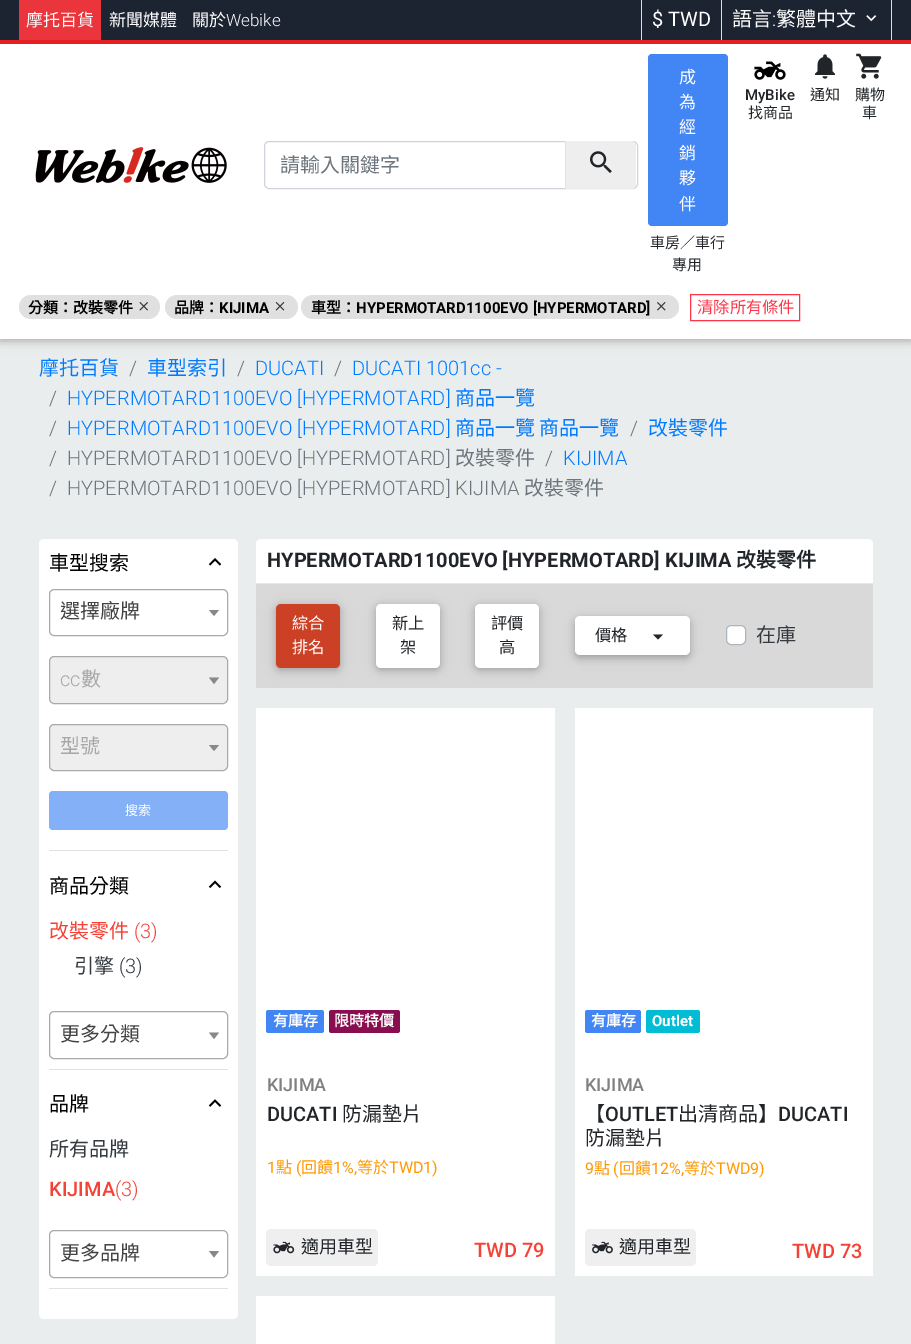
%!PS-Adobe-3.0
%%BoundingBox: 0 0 911 1344
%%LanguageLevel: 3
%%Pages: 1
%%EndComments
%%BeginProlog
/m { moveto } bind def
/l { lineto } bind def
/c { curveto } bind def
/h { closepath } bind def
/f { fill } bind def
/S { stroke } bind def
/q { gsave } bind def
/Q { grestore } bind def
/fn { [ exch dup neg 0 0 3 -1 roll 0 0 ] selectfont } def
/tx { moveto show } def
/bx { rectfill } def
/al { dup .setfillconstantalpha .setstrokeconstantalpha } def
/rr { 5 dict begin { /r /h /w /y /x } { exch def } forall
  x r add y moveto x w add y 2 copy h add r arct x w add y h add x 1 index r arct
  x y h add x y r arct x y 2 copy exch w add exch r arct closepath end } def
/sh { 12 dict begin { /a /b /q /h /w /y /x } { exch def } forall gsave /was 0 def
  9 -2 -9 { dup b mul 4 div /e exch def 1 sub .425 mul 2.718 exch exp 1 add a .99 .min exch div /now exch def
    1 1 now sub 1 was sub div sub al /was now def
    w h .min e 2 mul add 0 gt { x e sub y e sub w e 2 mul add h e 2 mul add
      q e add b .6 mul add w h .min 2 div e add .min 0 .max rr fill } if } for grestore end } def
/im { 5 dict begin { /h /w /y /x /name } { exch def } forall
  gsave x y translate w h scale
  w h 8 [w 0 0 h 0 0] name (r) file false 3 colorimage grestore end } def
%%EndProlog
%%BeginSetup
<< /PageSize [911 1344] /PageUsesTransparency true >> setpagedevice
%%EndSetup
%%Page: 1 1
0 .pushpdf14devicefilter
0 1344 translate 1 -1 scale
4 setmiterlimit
0.918 0.929 0.929 setrgbcolor
0 0 911 1344 bx
0 setgray
0 3 911 338 0 6 0.12 sh
0 3 911 338 0 3 0.16 sh
0.11 0.137 0.192 setrgbcolor
0 0 911 40 bx
0.902 0.118 0.145 setrgbcolor
0 40 911 4 bx
0.914 0.208 0.231 setrgbcolor
19 0 82 40 bx
/NotoSansCJKTC-Regular 17 fn
1 setgray
(摩托百貨) 26 26 tx
(新聞媒體) 109 26 tx
(關於) 192 26 tx
/Roboto-Light 17 fn
(Webike) 226 26 tx
0.867 setgray
721 0 1 40 bx
641 0 1 40 bx
/Roboto-Regular 20 fn
1 setgray
($ TWD) 652 26 tx
0.867 setgray
891 0 1 40 bx
/NotoSansCJKTC-Regular 20 fn
1 setgray
(語言 繁體中文) 732 26 tx
/Roboto-Light 20 fn
(:) 772 26 tx
(image0.raw) 866 15 11 7 im
0 44 911 295 bx
(image1.raw) 35 147 192 36 im
0.808 0.831 0.855 setrgbcolor
264.5 141.5 373 47 4.5 rr S
/NotoSansCJKTC-Regular 20 fn
0.424 0.459 0.49 setrgbcolor
(請輸入關鍵字) 280 172 tx
0.933 setgray
565 141 m 631 141 l 634 141 636 143 636 146 c 636 184 l 636 187 634 189 631 189 c 565 189 l h f
0.871 0.886 0.902 setrgbcolor
565 141 1 48 bx
(image2.raw) 590 151 22 22 im
0.259 0.522 0.957 setrgbcolor
648 54 80 172 4 rr f
/NotoSansCJKTC-Regular 17 fn
1 setgray
(成) 679 83 tx
(為) 679 108 tx
(經) 679 133 tx
(銷) 679 159 tx
(夥) 679 184 tx
(伴) 679 210 tx
/NotoSansCJKTC-Regular 15 fn
0.129 0.145 0.161 setrgbcolor
(車房／車行) 650 248 tx
(專用) 672 270 tx
(image3.raw) 754 61 32 19 im
/Roboto-Medium 15 fn
(MyBike) 745 100 tx
/NotoSansCJKTC-Regular 15 fn
(找商品) 748 118 tx
(image4.raw) 815 54 20 25 im
(通知) 810 100 tx
(image5.raw) 856 53 26 26 im
(購物) 855 100 tx
(車) 862 118 tx
0.878 setgray
19 295 141 24 12 rr f
/NotoSansCJKTC-Bold 15 fn
0 setgray
(分類：改裝零件) 28 313 tx
(image6.raw) 139 302 9 9 im
0.878 setgray
165 295 133 24 12 rr f
0 setgray
(品牌：) 174 313 tx
/Roboto-Bold 15 fn
(KIJIMA) 219 313 tx
(image7.raw) 275 302 10 9 im
0.878 setgray
301 295 378 24 12 rr f
/NotoSansCJKTC-Bold 15 fn
0 setgray
(車型：) 311 313 tx
/Roboto-Bold 15 fn
(HYPERMOTARD1100EVO [HYPERMOTARD]) 356 313 tx
(image8.raw) 657 302 9 9 im
1 0.208 0.278 setrgbcolor
690.5 294.5 109 26 rectstroke
/NotoSansCJKTC-Regular 16.25 fn
(清除所有條件) 697 313 tx
/NotoSansCJKTC-Regular 20 fn
0 0.482 1 setrgbcolor
(摩托百貨) 39 375 tx
/Roboto-Light 20 fn
0.424 0.459 0.49 setrgbcolor
(/) 129 375 tx
/NotoSansCJKTC-Regular 20 fn
0 0.482 1 setrgbcolor
(車型索引) 147 375 tx
/Roboto-Light 20 fn
0.424 0.459 0.49 setrgbcolor
(/) 237 375 tx
0 0.482 1 setrgbcolor
(DUCATI) 255 375 tx
0.424 0.459 0.49 setrgbcolor
(/) 334 375 tx
0 0.482 1 setrgbcolor
(DUCATI 1001cc -) 352 375 tx
0.424 0.459 0.49 setrgbcolor
(/) 49 405 tx
0 0.482 1 setrgbcolor
(HYPERMOTARD1100EVO [HYPERMOTARD]) 67 405 tx
/NotoSansCJKTC-Regular 20 fn
(商品一覽) 455 405 tx
/Roboto-Light 20 fn
0.424 0.459 0.49 setrgbcolor
(/) 49 435 tx
0 0.482 1 setrgbcolor
(HYPERMOTARD1100EVO [HYPERMOTARD]) 67 435 tx
/NotoSansCJKTC-Regular 20 fn
(商品一覽 商品一覽) 455 435 tx
/Roboto-Light 20 fn
0.424 0.459 0.49 setrgbcolor
(/) 630 435 tx
/NotoSansCJKTC-Regular 20 fn
0 0.482 1 setrgbcolor
(改裝零件) 648 435 tx
/Roboto-Light 20 fn
0.424 0.459 0.49 setrgbcolor
(/) 49 465 tx
(HYPERMOTARD1100EVO [HYPERMOTARD]) 67 465 tx
/NotoSansCJKTC-Regular 20 fn
(改裝零件) 455 465 tx
/Roboto-Light 20 fn
(/) 545 465 tx
0 0.482 1 setrgbcolor
(KIJIMA) 563 465 tx
0.424 0.459 0.49 setrgbcolor
(/) 49 495 tx
(HYPERMOTARD1100EVO [HYPERMOTARD] KIJIMA) 67 495 tx
/NotoSansCJKTC-Regular 20 fn
(改裝零件) 524 495 tx
1 setgray
39 539 199 780 5 rr f
0.871 0.886 0.902 setrgbcolor
49 850 179 1 bx
0 setgray
(車型搜索) 49 570 tx
(image9.raw) 208 558 14 8 im
0.667 setgray
49.5 589.5 178 46 4.5 rr S
0.267 setgray
(選擇廠牌) 60 618 tx
0.533 setgray
209 610 m 219 610 l 214 616 l h f
0.933 setgray
49.5 656.5 178 47 4.5 rr q f Q
0.667 setgray
S
/Roboto-Light 20 fn
0.655 setgray
(cc) 60 686 tx
/NotoSansCJKTC-Regular 20 fn
(數) 81 686 tx
0.533 setgray
209 677.5 m 219 677.5 l 214 684 l h f
0.933 setgray
49.5 724.5 178 46 4.5 rr q f Q
0.667 setgray
S
0.655 setgray
(型號) 60 753 tx
0.533 setgray
209 745 m 219 745 l 214 751 l h f
0.518 0.69 0.973 setrgbcolor
49 791 179 39 4 rr f
/NotoSansCJKTC-Regular 13 fn
1 setgray
(搜索) 125 815 tx
0.871 0.886 0.902 setrgbcolor
49 1069 179 1 bx
/NotoSansCJKTC-Regular 20 fn
0 setgray
(商品分類) 49 893 tx
(image10.raw) 208 880 14 8 im
0.957 0.263 0.212 setrgbcolor
(改裝零件) 49 938 tx
/Roboto-Light 20 fn
(\(3\)) 134 938 tx
/NotoSansCJKTC-Regular 20 fn
0.204 0.227 0.251 setrgbcolor
(引擎) 74 973 tx
/Roboto-Light 20 fn
(\(3\)) 119 973 tx
0.667 setgray
49.5 1011.5 178 47 4.5 rr S
/NotoSansCJKTC-Regular 20 fn
0.267 setgray
(更多分類) 60 1041 tx
0.533 setgray
209 1032.5 m 219 1032.5 l 214 1039 l h f
0.871 0.886 0.902 setrgbcolor
49 1288 179 1 bx
0 setgray
(品牌) 49 1111 tx
(image11.raw) 208 1099 14 8 im
0.204 0.227 0.251 setrgbcolor
(所有品牌) 49 1156 tx
/Roboto-Medium 20 fn
0.957 0.263 0.212 setrgbcolor
(KIJIMA) 49 1196 tx
/Roboto-Light 20 fn
(\(3\)) 115 1196 tx
0.667 setgray
49.5 1230.5 178 47 4.5 rr S
/NotoSansCJKTC-Regular 20 fn
0.267 setgray
(更多品牌) 60 1260 tx
0.533 setgray
209 1251 m 219 1251 l 214 1257.5 l h f
1 setgray
256 539 617 149 5 rr f
/Roboto-Bold 20 fn
0.129 0.145 0.161 setrgbcolor
(HYPERMOTARD1100EVO [HYPERMOTARD] KIJIMA) 267 567 tx
/NotoSansCJKTC-Bold 20 fn
(改裝零件) 736 567 tx
0.902 setgray
256 583 617 1 bx
0.851 setgray
256 584 617 104 bx
0 setgray
276 606 64 64 5 6 0.12 sh
276 606 64 64 5 3 0.16 sh
0.8 0.255 0.145 setrgbcolor
276 604 64 64 5 rr f
/NotoSansCJKTC-Regular 16.25 fn
1 setgray
(綜合) 292 629 tx
(排名) 292 653 tx
0 setgray
376 606 64 64 5 6 0.12 sh
376 606 64 64 5 3 0.16 sh
1 setgray
376 604 64 64 5 rr f
0.129 0.145 0.161 setrgbcolor
(新上) 392 629 tx
(架) 400 653 tx
0 setgray
475 606 64 64 5 6 0.12 sh
475 606 64 64 5 3 0.16 sh
1 setgray
475 604 64 64 5 rr f
0.129 0.145 0.161 setrgbcolor
(評價) 491 629 tx
(高) 499 653 tx
0 setgray
575 619 115 39 5 6 0.12 sh
575 619 115 39 5 3 0.16 sh
1 setgray
575 616 115 39 5 rr f
0.129 0.145 0.161 setrgbcolor
(價格) 595 641 tx
653 634.5 m 663 634.5 l 658 639.5 l h f
1 setgray
726.5 625.5 19 19 4.5 rr q f Q
0.678 0.71 0.741 setrgbcolor
S
/NotoSansCJKTC-Regular 20 fn
0.204 0.227 0.251 setrgbcolor
(在庫) 756 642 tx
1 setgray
256 708 299 568 bx
0.259 0.522 0.957 setrgbcolor
266 1010 58 23 2.5 rr f
/NotoSansCJKTC-Bold 15 fn
1 setgray
(有庫存) 273 1026 tx
0.533 0.055 0.31 setrgbcolor
329 1010 71 23 2.5 rr f
1 setgray
(限時特價) 334 1026 tx
/Roboto-Medium 18 fn
0.502 setgray
(KIJIMA) 267 1091 tx
/Roboto-Medium 20 fn
0.129 0.145 0.161 setrgbcolor
(DUCATI) 267 1121 tx
/NotoSansCJKTC-Regular 20 fn
(防漏墊片) 342 1121 tx
/Roboto-Regular 16 fn
1 0.596 0 setrgbcolor
(1) 267 1173 tx
/NotoSansCJKTC-Regular 16 fn
(點) 276 1173 tx
/Roboto-Regular 16 fn
(\() 296 1173 tx
/NotoSansCJKTC-Regular 16 fn
(回饋) 301 1173 tx
/Roboto-Regular 16 fn
(1%,) 333 1173 tx
/NotoSansCJKTC-Regular 16 fn
(等於) 357 1173 tx
/Roboto-Regular 16 fn
(TWD1\)) 389 1173 tx
0.937 setgray
266 1229 112 37 5 rr f
(image12.raw) 273 1241 22 13 im
/NotoSansCJKTC-Regular 18 fn
0.129 0.145 0.161 setrgbcolor
(適用車型) 301 1253 tx
/Roboto-Medium 20 fn
0.957 0.263 0.212 setrgbcolor
(TWD 79) 474 1257 tx
1 setgray
575 708 298 568 bx
0.259 0.522 0.957 setrgbcolor
585 1010 56 23 2.5 rr f
/NotoSansCJKTC-Bold 15 fn
1 setgray
(有庫存) 591 1026 tx
0 0.737 0.831 setrgbcolor
646 1010 54 23 2.5 rr f
/Roboto-Bold 15 fn
1 setgray
(Outlet) 652 1026 tx
/Roboto-Medium 18 fn
0.502 setgray
(KIJIMA) 585 1091 tx
/NotoSansCJKTC-Regular 20 fn
0.129 0.145 0.161 setrgbcolor
(【) 585 1121 tx
/Roboto-Medium 20 fn
(OUTLET) 605 1121 tx
/NotoSansCJKTC-Regular 20 fn
(出清商品】) 678 1121 tx
/Roboto-Medium 20 fn
(DUCATI) 778 1121 tx
/NotoSansCJKTC-Regular 20 fn
(防漏墊片) 585 1145 tx
/Roboto-Regular 16 fn
1 0.596 0 setrgbcolor
(9) 585 1174 tx
/NotoSansCJKTC-Regular 16 fn
(點) 594 1174 tx
/Roboto-Regular 16 fn
(\() 613 1174 tx
/NotoSansCJKTC-Regular 16 fn
(回饋) 619 1174 tx
/Roboto-Regular 16 fn
(12%,) 651 1174 tx
/NotoSansCJKTC-Regular 16 fn
(等於) 684 1174 tx
/Roboto-Regular 16 fn
(TWD9\)) 716 1174 tx
0.937 setgray
585 1229 111 37 5 rr f
(image13.raw) 592 1241 21 13 im
/NotoSansCJKTC-Regular 18 fn
0.129 0.145 0.161 setrgbcolor
(適用車型) 619 1253 tx
/Roboto-Medium 20 fn
0.957 0.263 0.212 setrgbcolor
(TWD 73) 792 1258 tx
1 setgray
256 1296 299 48 bx
.poppdf14devicefilter showpage
%%EOF
